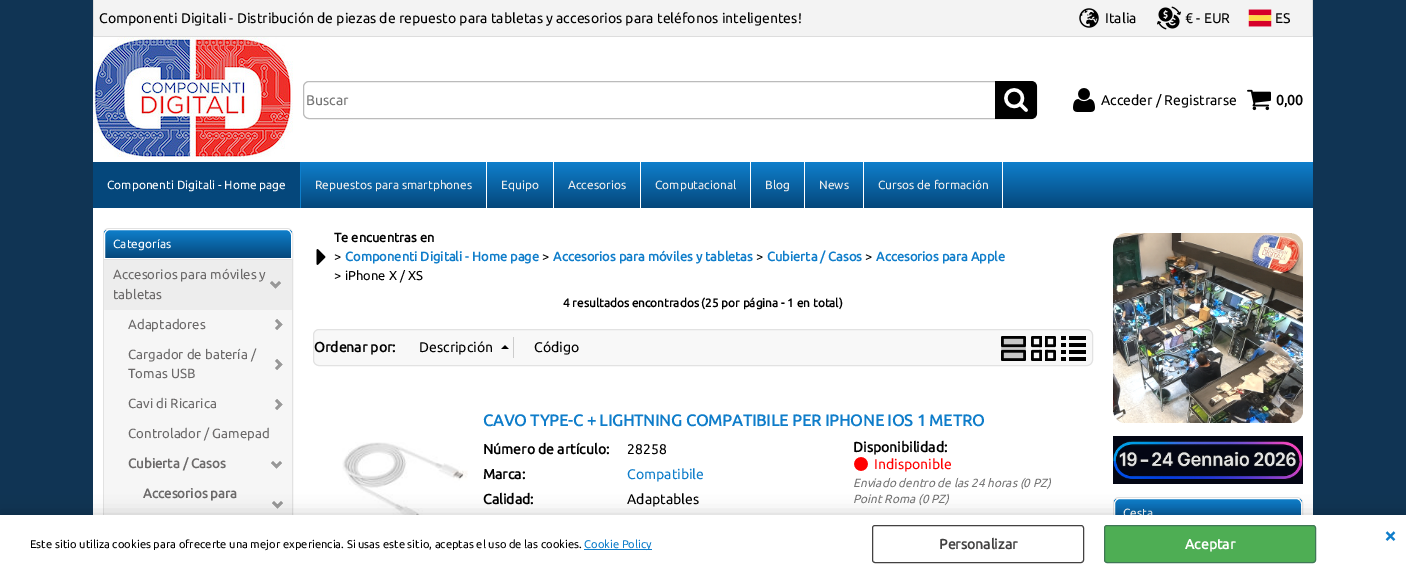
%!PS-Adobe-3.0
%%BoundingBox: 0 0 1406 573
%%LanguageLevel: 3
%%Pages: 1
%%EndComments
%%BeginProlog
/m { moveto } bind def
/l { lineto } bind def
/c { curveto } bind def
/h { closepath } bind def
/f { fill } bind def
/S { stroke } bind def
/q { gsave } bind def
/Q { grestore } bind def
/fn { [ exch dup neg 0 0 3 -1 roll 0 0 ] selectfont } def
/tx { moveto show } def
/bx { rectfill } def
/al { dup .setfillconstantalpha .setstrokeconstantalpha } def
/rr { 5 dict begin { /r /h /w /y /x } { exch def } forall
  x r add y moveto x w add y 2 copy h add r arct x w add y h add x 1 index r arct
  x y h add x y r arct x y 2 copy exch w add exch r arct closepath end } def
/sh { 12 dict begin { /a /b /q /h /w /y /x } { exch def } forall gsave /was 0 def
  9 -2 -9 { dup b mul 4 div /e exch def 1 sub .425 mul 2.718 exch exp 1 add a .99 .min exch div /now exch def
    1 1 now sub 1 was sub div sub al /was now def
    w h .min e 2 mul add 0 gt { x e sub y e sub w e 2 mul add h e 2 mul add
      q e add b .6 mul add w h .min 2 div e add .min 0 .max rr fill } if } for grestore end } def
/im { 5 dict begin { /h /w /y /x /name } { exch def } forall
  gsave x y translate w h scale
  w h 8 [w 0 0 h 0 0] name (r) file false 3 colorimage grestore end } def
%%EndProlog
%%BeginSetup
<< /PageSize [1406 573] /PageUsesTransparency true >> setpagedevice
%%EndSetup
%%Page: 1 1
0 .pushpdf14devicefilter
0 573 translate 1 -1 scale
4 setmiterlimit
0.063 0.204 0.329 setrgbcolor
0 0 1406 573 bx
1 setgray
93 37 1220 125 bx
0.953 setgray
94 0 1218 36 bx
0.867 setgray
1312 0 1 37 bx
93 36 1220 1 bx
93 0 1 37 bx
/Ubuntu-Regular 14 fn
0 setgray
(Componenti Digitali - Distribución de piezas de repuesto para tabletas y accesorios para teléfonos inteligentes!) 99 23 tx
(image0.raw) 1079 8 20 20 im
(Italia) 1105 23 tx
(image1.raw) 1157 6 24 24 im
(€ - EUR) 1185 23 tx
(image2.raw) 1248 9 24 18 im
(ES) 1275 23 tx
(image3.raw) 93 37 200 122 im
0.733 setgray
303.5 81.5 733 37 5.5 rr S
0.459 setgray
(Buscar) 306 105 tx
0 setgray
995 81 m 1031 81 l 1034.5 81 1037 83.5 1037 87 c 1037 113 l 1037 116.5 1034.5 119 1031 119 c 995 119 l h f
(image4.raw) 1004 88 24 24 im
(image5.raw) 1073 88 22 24 im
(Acceder / Registrarse) 1101 105 tx
(image6.raw) 1247 89 24 22 im
/Ubuntu-Bold 14 fn
(0,00) 1276 105 tx
q 301 162 m 1313 162 l 1313 208 l 301 208 l h clip newpath
<< /ShadingType 2 /ColorSpace /DeviceRGB /Coords [703 162 703 208] /Extend [true true] /Function << /FunctionType 2 /Domain [0 1] /C0 [0.059 0.498 0.8] /C1 [0.02 0.278 0.482] /N 1 >> >> shfill Q
0.02 0.278 0.482 setrgbcolor
93 162 207 46 bx
0.059 0.498 0.8 setrgbcolor
300 162 1 46 bx
/Ubuntu-Regular 11.9 fn
1 setgray
(Componenti Digitali - Home page) 107 189 tx
486 162 1 46 bx
0.933 setgray
(Repuestos para smartphones) 315 189 tx
1 setgray
553 162 1 46 bx
0.933 setgray
(Equipo) 501 189 tx
1 setgray
640 162 1 46 bx
0.933 setgray
(Accesorios) 568 189 tx
1 setgray
750 162 1 46 bx
0.933 setgray
(Computacional) 655 189 tx
1 setgray
804 162 1 46 bx
0.933 setgray
(Blog) 765 189 tx
1 setgray
863 162 1 46 bx
0.933 setgray
(News) 819 189 tx
1 setgray
1002 162 1 46 bx
0.933 setgray
(Cursos de formación) 878 189 tx
1 setgray
93 208 1220 307 bx
0.886 setgray
103.5 228.5 189 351 5.5 rr S
q
110 229 m 286 229 l 289.5 229 292 231.5 292 235 c 292 259 l 104 259 l 104 235 l 104 231.5 106.5 229 110 229 c h clip newpath
q 104 230 m 292 230 l 292 258 l 104 258 l h clip newpath
<< /ShadingType 2 /ColorSpace /DeviceRGB /Coords [198 230 198 258] /Extend [true true] /Function << /FunctionType 2 /Domain [0 1] /C0 [0.059 0.498 0.8] /C1 [0.02 0.278 0.482] /N 1 >> >> shfill Q
Q
1 setgray
110 229.5 m 286 229.5 l 289 229.5 291.5 232 291.5 235 c 291.5 258.5 l 104.5 258.5 l 104.5 235 l 104.5 232 107 229.5 110 229.5 c h S
(Categorías) 113 248 tx
0.886 setgray
104 259 188 1 bx
0.929 setgray
104 260 188 50 bx
(image7.raw) 270 281 11 8 im
/Ubuntu-Regular 13.25 fn
0.42 0.412 0.412 setrgbcolor
(Accesorios para móviles y) 113 279 tx
(tabletas) 113 299 tx
0.965 setgray
104 310 188 205 bx
(image8.raw) 275 319 8 11 im
0.42 0.412 0.412 setrgbcolor
(Adaptadores) 128 329 tx
(image8.raw) 275 359 8 11 im
(Cargador de batería /) 128 359 tx
(Tomas USB) 128 378 tx
(image8.raw) 275 399 8 11 im
(Cavi di Ricarica) 128 408 tx
(Controlador / Gamepad) 128 438 tx
(image9.raw) 271 461 11 8 im
/Ubuntu-Bold 13.25 fn
(Cubierta / Casos) 128 468 tx
(image9.raw) 272 501 11 8 im
(Accesorios para) 143 498 tx
(image10.raw) 316 249 10 16 im
/Ubuntu-Bold 12.9 fn
0 setgray
(Te encuentras en) 334 242 tx
/Ubuntu-Regular 12.9 fn
(>) 334 261 tx
/Ubuntu-Bold 12.9 fn
0.059 0.49 0.792 setrgbcolor
(Componenti Digitali - Home page) 345 261 tx
/Ubuntu-Regular 12.9 fn
0 setgray
(>) 542 261 tx
/Ubuntu-Bold 12.9 fn
0.059 0.49 0.792 setrgbcolor
(Accesorios para móviles y tabletas) 553 261 tx
/Ubuntu-Regular 12.9 fn
0 setgray
(>) 756 261 tx
/Ubuntu-Bold 12.9 fn
0.059 0.49 0.792 setrgbcolor
(Cubierta / Casos) 767 261 tx
/Ubuntu-Regular 12.9 fn
0 setgray
(>) 865 261 tx
/Ubuntu-Bold 12.9 fn
0.059 0.49 0.792 setrgbcolor
(Accesorios para Apple) 876 261 tx
/Ubuntu-Regular 12.9 fn
0 setgray
(>) 334 280 tx
(iPhone X / XS) 345 280 tx
/Ubuntu-Bold 11.8 fn
(4 resultados encontrados \(25 por página - 1 en total\)) 563 307 tx
0.973 setgray
313.5 329.5 779 36 5.5 rr q f Q
0.886 setgray
S
/Ubuntu-Bold 14 fn
0 setgray
(Ordenar por:) 314 352 tx
(image11.raw) 501 345 8 4 im
0.8 setgray
513 337 1 21 bx
/Ubuntu-Regular 14 fn
0 setgray
(Descripción) 419 352 tx
(Código) 534 352 tx
0.776 setgray
1001 336 25 25 bx
(image12.raw) 1001 336 25 25 im
(image13.raw) 1031 336 25 25 im
(image14.raw) 1061 336 25 25 im
/Ubuntu-Bold 16.1 fn
0.059 0.49 0.792 setrgbcolor
(CAVO TYPE-C + LIGHTNING COMPATIBILE PER IPHONE IOS 1 METRO) 483 426 tx
(image15.raw) 342 442 126 73 im
/Ubuntu-Bold 14 fn
0 setgray
(Número de artículo:) 483 454 tx
/Ubuntu-Regular 14 fn
(28258) 627 454 tx
/Ubuntu-Bold 14 fn
(Marca:) 483 479 tx
/Ubuntu-Regular 14 fn
0.059 0.49 0.792 setrgbcolor
(Compatibile) 627 479 tx
/Ubuntu-Bold 14 fn
0 setgray
(Calidad:) 483 504 tx
/Ubuntu-Regular 14 fn
(Adaptables) 627 504 tx
/Ubuntu-Bold 14 fn
(Disponibilidad:) 853 452 tx
(image16.raw) 854 457 14 14 im
/Ubuntu-Regular 14 fn
1 0 0 setrgbcolor
(Indisponible) 874 469 tx
/Ubuntu-Italic 11.8 fn
0.459 setgray
(Enviado dentro de las 24 horas \(0 PZ\)) 853 487 tx
(Point Roma \(0 PZ\)) 853 503 tx
(image17.raw) 1113 233 190 190 im
(image18.raw) 1113 436 190 48 im
0.886 setgray
1113.5 497.5 189 61 5.5 rr S
q
1120 498 m 1296 498 l 1299.5 498 1302 500.5 1302 504 c 1302 528 l 1114 528 l 1114 504 l 1114 500.5 1116.5 498 1120 498 c h clip newpath
q 1114 499 m 1302 499 l 1302 515 l 1114 515 l h clip newpath
<< /ShadingType 2 /ColorSpace /DeviceRGB /Coords [1208 499 1208 527] /Extend [true true] /Function << /FunctionType 2 /Domain [0 1] /C0 [0.059 0.498 0.8] /C1 [0.02 0.278 0.482] /N 1 >> >> shfill Q
Q
1 setgray
1120 498.5 m 1296 498.5 l 1299 498.5 1301.5 501 1301.5 504 c 1301.5 527.5 l 1114.5 527.5 l 1114.5 504 l 1114.5 501 1117 498.5 1120 498.5 c h S
/Ubuntu-Regular 11.9 fn
(Cesta) 1123 517 tx
0 setgray
0 515 1406 58 0 9 0.2 sh
1 setgray
0 515 1406 58 bx
/Ubuntu-Bold 22 fn
0.059 0.49 0.792 setrgbcolor
(×) 1384 543 tx
/Ubuntu-Regular 11.2 fn
0 setgray
(Este sitio utiliza cookies para ofrecerte una mejor experiencia. Si usas este sitio, aceptas el uso de las cookies.) 30 548 tx
0.059 0.49 0.792 setrgbcolor
584 549 68 1 bx
(Cookie Policy) 584 548 tx
0.259 0.255 0.255 setrgbcolor
872.5 525.5 211 37 2.5 rr S
/Ubuntu-Bold 14 fn
(Personalizar) 939 549 tx
0.306 0.682 0.329 setrgbcolor
1104.5 525.5 211 37 2.5 rr q f Q
0.247 0.467 0.333 setrgbcolor
S
1 setgray
(Aceptar) 1185 549 tx
.poppdf14devicefilter showpage
%%EOF
